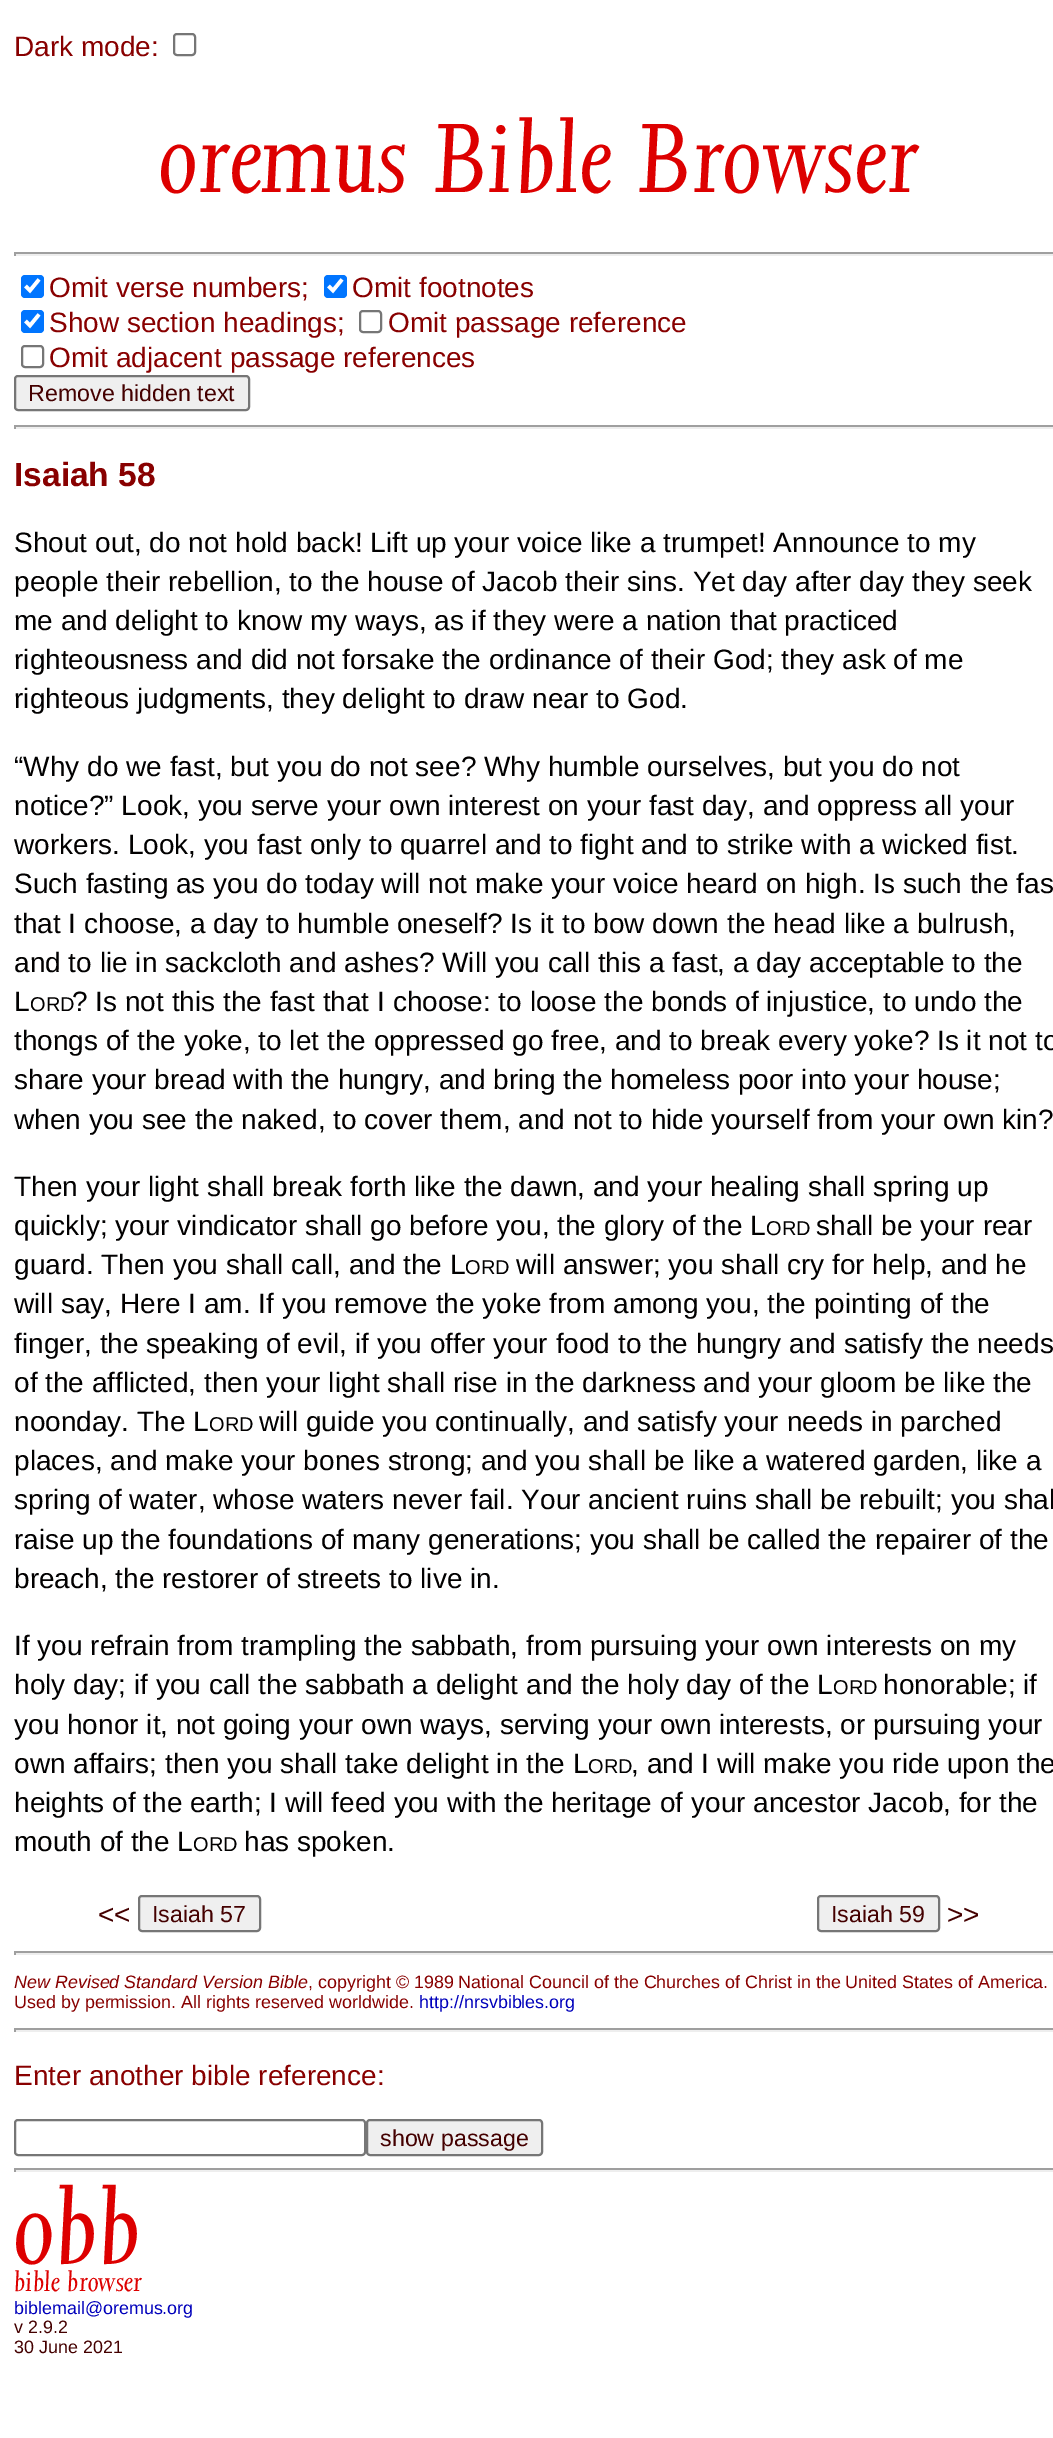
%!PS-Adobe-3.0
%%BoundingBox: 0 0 1053 2438
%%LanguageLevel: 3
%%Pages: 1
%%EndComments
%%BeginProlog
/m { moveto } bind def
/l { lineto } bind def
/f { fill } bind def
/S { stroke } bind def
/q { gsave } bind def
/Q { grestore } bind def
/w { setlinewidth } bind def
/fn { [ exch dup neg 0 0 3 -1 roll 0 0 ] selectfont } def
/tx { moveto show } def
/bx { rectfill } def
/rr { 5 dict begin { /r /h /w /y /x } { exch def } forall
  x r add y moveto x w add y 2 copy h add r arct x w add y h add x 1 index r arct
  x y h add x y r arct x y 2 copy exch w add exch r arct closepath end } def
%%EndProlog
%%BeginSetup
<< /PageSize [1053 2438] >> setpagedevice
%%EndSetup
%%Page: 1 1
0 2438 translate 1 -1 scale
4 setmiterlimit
1 setgray
0 0 1053 2438 bx
/LiberationSans-Regular 28 fn
0.533 0 0 setrgbcolor
(Dark mode:) 14 56 tx
0.463 setgray
2 w
174 34 21 21 3 rr S
/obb-Regular 113.75 fn
0.867 0 0 setrgbcolor
(oremus Bible Browser) 159 192 tx
0.624 setgray
14 252 1039 2 bx
0.933 setgray
14 254 1039 2 bx
0.624 setgray
14 252 2 4 bx
0 0.459 1 setrgbcolor
21 275 23 23 4 rr f
1 setgray
3.6 w
25.5 286 m 30 290.5 l 39 279.5 l S
/LiberationSans-Regular 28 fn
0.533 0 0 setrgbcolor
(Omit verse numbers;) 49 297 tx
0 0.459 1 setrgbcolor
324 275 23 23 4 rr f
1 setgray
328.5 286 m 333 290.5 l 342 279.5 l S
0.533 0 0 setrgbcolor
(Omit footnotes) 352 297 tx
0 0.459 1 setrgbcolor
21 310 23 23 4 rr f
1 setgray
25.5 321 m 30 325.5 l 39 314.5 l S
0.533 0 0 setrgbcolor
(Show section headings;) 49 332 tx
0.463 setgray
2 w
360 311 21 21 3 rr S
0.533 0 0 setrgbcolor
(Omit passage reference) 388 332 tx
0.463 setgray
22 346 21 21 3 rr S
0.533 0 0 setrgbcolor
(Omit adjacent passage references) 49 367 tx
0.937 setgray
15 376 234 34 3 rr q f Q
0.463 setgray
S
/LiberationSans-Regular 23.25 fn
0.267 0 0 setrgbcolor
(Remove hidden text) 28 401 tx
0.624 setgray
14 425 1039 2 bx
0.933 setgray
14 427 1039 2 bx
0.624 setgray
14 425 2 4 bx
/LiberationSans-Bold 33.5 fn
0.533 0 0 setrgbcolor
(Isaiah 58) 14 486 tx
/LiberationSans-Regular 28 fn
0.004 0 0 setrgbcolor
(Shout out, do not hold back! Lift up your voice like a trumpet! Announce to my) 14 552 tx
(people their rebellion, to the house of Jacob their sins. Yet day after day they seek) 14 591 tx
(me and delight to know my ways, as if they were a nation that practiced) 14 630 tx
(righteousness and did not forsake the ordinance of their God; they ask of me) 14 669 tx
(righteous judgments, they delight to draw near to God.) 14 708 tx
(“Why do we fast, but you do not see? Why humble ourselves, but you do not) 14 776 tx
(notice?” Look, you serve your own interest on your fast day, and oppress all your) 14 815 tx
(workers. Look, you fast only to quarrel and to fight and to strike with a wicked fist.) 14 854 tx
(Such fasting as you do today will not make your voice heard on high. Is such the fas) 14 893 tx
(that I choose, a day to humble oneself? Is it to bow down the head like a bulrush,) 14 933 tx
(and to lie in sackcloth and ashes? Will you call this a fast, a day acceptable to the) 14 972 tx
(L) 14 1011 tx
/LiberationSans-Regular 20 fn
(ORD) 30 1011 tx
/LiberationSans-Regular 28 fn
(? Is not this the fast that I choose: to loose the bonds of injustice, to undo the) 72 1011 tx
(thongs of the yoke, to let the oppressed go free, and to break every yoke? Is it not to) 14 1050 tx
(share your bread with the hungry, and bring the homeless poor into your house;) 14 1089 tx
(when you see the naked, to cover them, and not to hide yourself from your own kin?) 14 1129 tx
(Then your light shall break forth like the dawn, and your healing shall spring up) 14 1196 tx
(quickly; your vindicator shall go before you, the glory of the L) 14 1235 tx
/LiberationSans-Regular 20 fn
(ORD) 766 1235 tx
/LiberationSans-Regular 28 fn
(shall be your rear) 816 1235 tx
(guard. Then you shall call, and the L) 14 1274 tx
/LiberationSans-Regular 20 fn
(ORD) 465 1274 tx
/LiberationSans-Regular 28 fn
(will answer; you shall cry for help, and he) 516 1274 tx
(will say, Here I am. If you remove the yoke from among you, the pointing of the) 14 1313 tx
(finger, the speaking of evil, if you offer your food to the hungry and satisfy the needs) 14 1353 tx
(of the afflicted, then your light shall rise in the darkness and your gloom be like the) 14 1392 tx
(noonday. The L) 14 1431 tx
/LiberationSans-Regular 20 fn
(ORD) 209 1431 tx
/LiberationSans-Regular 28 fn
(will guide you continually, and satisfy your needs in parched) 259 1431 tx
(places, and make your bones strong; and you shall be like a watered garden, like a) 14 1470 tx
(spring of water, whose waters never fail. Your ancient ruins shall be rebuilt; you shal) 14 1509 tx
(raise up the foundations of many generations; you shall be called the repairer of the) 14 1549 tx
(breach, the restorer of streets to live in.) 14 1588 tx
(If you refrain from trampling the sabbath, from pursuing your own interests on my) 14 1655 tx
(holy day; if you call the sabbath a delight and the holy day of the L) 14 1694 tx
/LiberationSans-Regular 20 fn
(ORD) 833 1694 tx
/LiberationSans-Regular 28 fn
(honorable; if) 883 1694 tx
(you honor it, not going your own ways, serving your own interests, or pursuing your) 14 1734 tx
(own affairs; then you shall take delight in the L) 14 1773 tx
/LiberationSans-Regular 20 fn
(ORD) 588 1773 tx
/LiberationSans-Regular 28 fn
(, and I will make you ride upon the) 631 1773 tx
(heights of the earth; I will feed you with the heritage of your ancestor Jacob, for the) 14 1812 tx
(mouth of the L) 14 1851 tx
/LiberationSans-Regular 20 fn
(ORD) 193 1851 tx
/LiberationSans-Regular 28 fn
(has spoken.) 244 1851 tx
0.267 0 0 setrgbcolor
(<<) 98 1924 tx
0.937 setgray
139 1896 121 35 3 rr q f Q
0.463 setgray
S
/LiberationSans-Regular 23.25 fn
0.267 0 0 setrgbcolor
(Isaiah 57) 152 1922 tx
0.937 setgray
818 1896 121 35 3 rr q f Q
0.463 setgray
S
0.267 0 0 setrgbcolor
(Isaiah 59) 831 1922 tx
/LiberationSans-Regular 28 fn
(>>) 947 1924 tx
0.624 setgray
14 1951 1039 2 bx
0.933 setgray
14 1953 1039 2 bx
0.624 setgray
14 1951 2 4 bx
/LiberationSans-Italic 17.9 fn
0.533 0 0 setrgbcolor
(New Revised Standard Version Bible) 14 1988 tx
/LiberationSans-Regular 17.9 fn
(, copyright © 1989 National Council of the Churches of Christ in the United States of America.) 308 1988 tx
(Used by permission. All rights reserved worldwide.) 14 2008 tx
0 0 0.733 setrgbcolor
(http://nrsvbibles.org) 419 2008 tx
0.624 setgray
14 2028 1039 2 bx
0.933 setgray
14 2030 1039 2 bx
0.624 setgray
14 2028 2 4 bx
/LiberationSans-Regular 28 fn
0.533 0 0 setrgbcolor
(Enter another bible reference:) 14 2085 tx
0.463 setgray
15 2120 350 35 3 rr S
0.937 setgray
367 2120 175 35 3 rr q f Q
0.463 setgray
S
/LiberationSans-Regular 23.25 fn
0.267 0 0 setrgbcolor
(show passage) 380 2146 tx
0.624 setgray
14 2168 1039 2 bx
0.933 setgray
14 2170 1039 2 bx
0.624 setgray
14 2168 2 4 bx
/obb-Regular 119 fn
0.867 0 0 setrgbcolor
(obb) 14 2263 tx
/obb-Regular 31.5 fn
(bible browser) 14 2291 tx
/LiberationSans-Regular 17.9 fn
0 0 0.733 setrgbcolor
(biblemail@oremus.org) 14 2314 tx
0.267 0 0 setrgbcolor
(v 2.9.2) 14 2333 tx
(30 June 2021) 14 2353 tx
showpage
%%EOF
